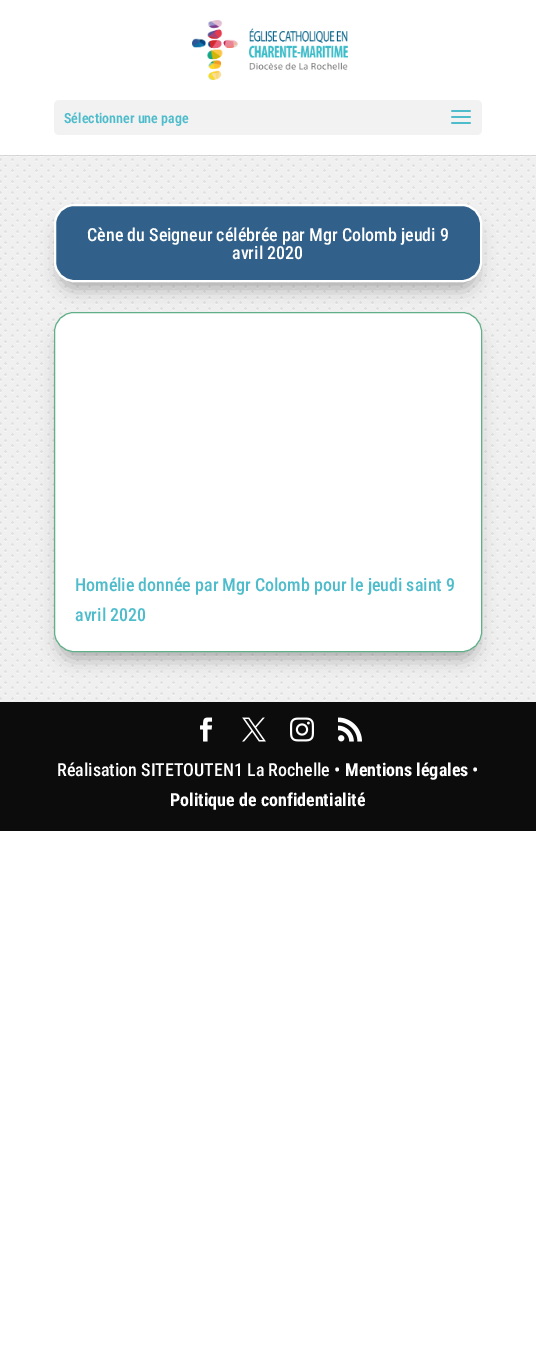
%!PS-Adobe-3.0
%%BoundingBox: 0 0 536 1352
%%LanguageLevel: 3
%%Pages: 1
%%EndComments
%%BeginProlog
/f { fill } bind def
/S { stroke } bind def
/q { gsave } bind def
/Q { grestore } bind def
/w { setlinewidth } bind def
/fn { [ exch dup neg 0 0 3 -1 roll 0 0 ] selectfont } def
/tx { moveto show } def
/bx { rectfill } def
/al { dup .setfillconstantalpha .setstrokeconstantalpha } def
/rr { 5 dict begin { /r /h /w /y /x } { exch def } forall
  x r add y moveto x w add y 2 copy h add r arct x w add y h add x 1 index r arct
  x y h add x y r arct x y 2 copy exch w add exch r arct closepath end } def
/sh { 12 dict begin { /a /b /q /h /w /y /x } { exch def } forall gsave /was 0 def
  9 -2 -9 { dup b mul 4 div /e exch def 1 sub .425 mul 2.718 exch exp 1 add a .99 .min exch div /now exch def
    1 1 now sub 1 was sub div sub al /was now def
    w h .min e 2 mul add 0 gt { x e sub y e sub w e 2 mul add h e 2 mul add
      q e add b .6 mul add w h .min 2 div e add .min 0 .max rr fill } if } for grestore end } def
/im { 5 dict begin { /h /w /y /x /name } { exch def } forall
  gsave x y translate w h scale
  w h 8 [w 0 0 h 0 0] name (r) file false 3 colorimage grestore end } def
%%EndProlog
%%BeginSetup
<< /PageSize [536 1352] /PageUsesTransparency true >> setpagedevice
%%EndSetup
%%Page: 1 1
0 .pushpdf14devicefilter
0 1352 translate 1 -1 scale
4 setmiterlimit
1 setgray
0 0 536 1352 bx
(image2.raw) 0 155 536 547 im
0.1 al
0 setgray
0 155 536 1 bx
1 al
(image0.raw) 192 20 156 60 im
0.949 setgray
54 100 428 35 5 rr f
/RobotoCondensed-SemiBold 14 fn
0.31 0.737 0.796 setrgbcolor
(Sélectionner une page) 64 123 tx
(image1.raw) 451 110 20 14 im
0 setgray
60 222 416 66 14 9 0.3 sh
0.192 0.38 0.541 setrgbcolor
55 205 426 76 19 rr q f Q
1 setgray
2 w
S
/RobotoCondensed-Medium 18 fn
(Cène du Seigneur célébrée par Mgr Colomb jeudi 9) 87 241 tx
(avril 2020) 232 259 tx
0 setgray
60 330 416 328 14 9 0.3 sh
1 setgray
54.5 312.5 427 339 19.5 rr q f Q
0.376 0.686 0.533 setrgbcolor
1 w
S
0.31 0.737 0.796 setrgbcolor
(Homélie donnée par Mgr Colomb pour le jeudi saint 9) 75 591 tx
(avril 2020) 75 621 tx
0.047 setgray
0 702 536 129 bx
(image3.raw) 200 717 13 25 im
(image4.raw) 242 717 24 25 im
(image5.raw) 290 717 24 25 im
(image6.raw) 338 717 24 25 im
1 setgray
(Réalisation SITETOUTEN1 La Rochelle •) 57 776 tx
/RobotoCondensed-Bold 18 fn
(Mentions légales) 345 776 tx
/RobotoCondensed-Medium 18 fn
(•) 472 776 tx
/RobotoCondensed-Bold 18 fn
(Politique de confidentialité) 170 806 tx
.poppdf14devicefilter showpage
%%EOF
